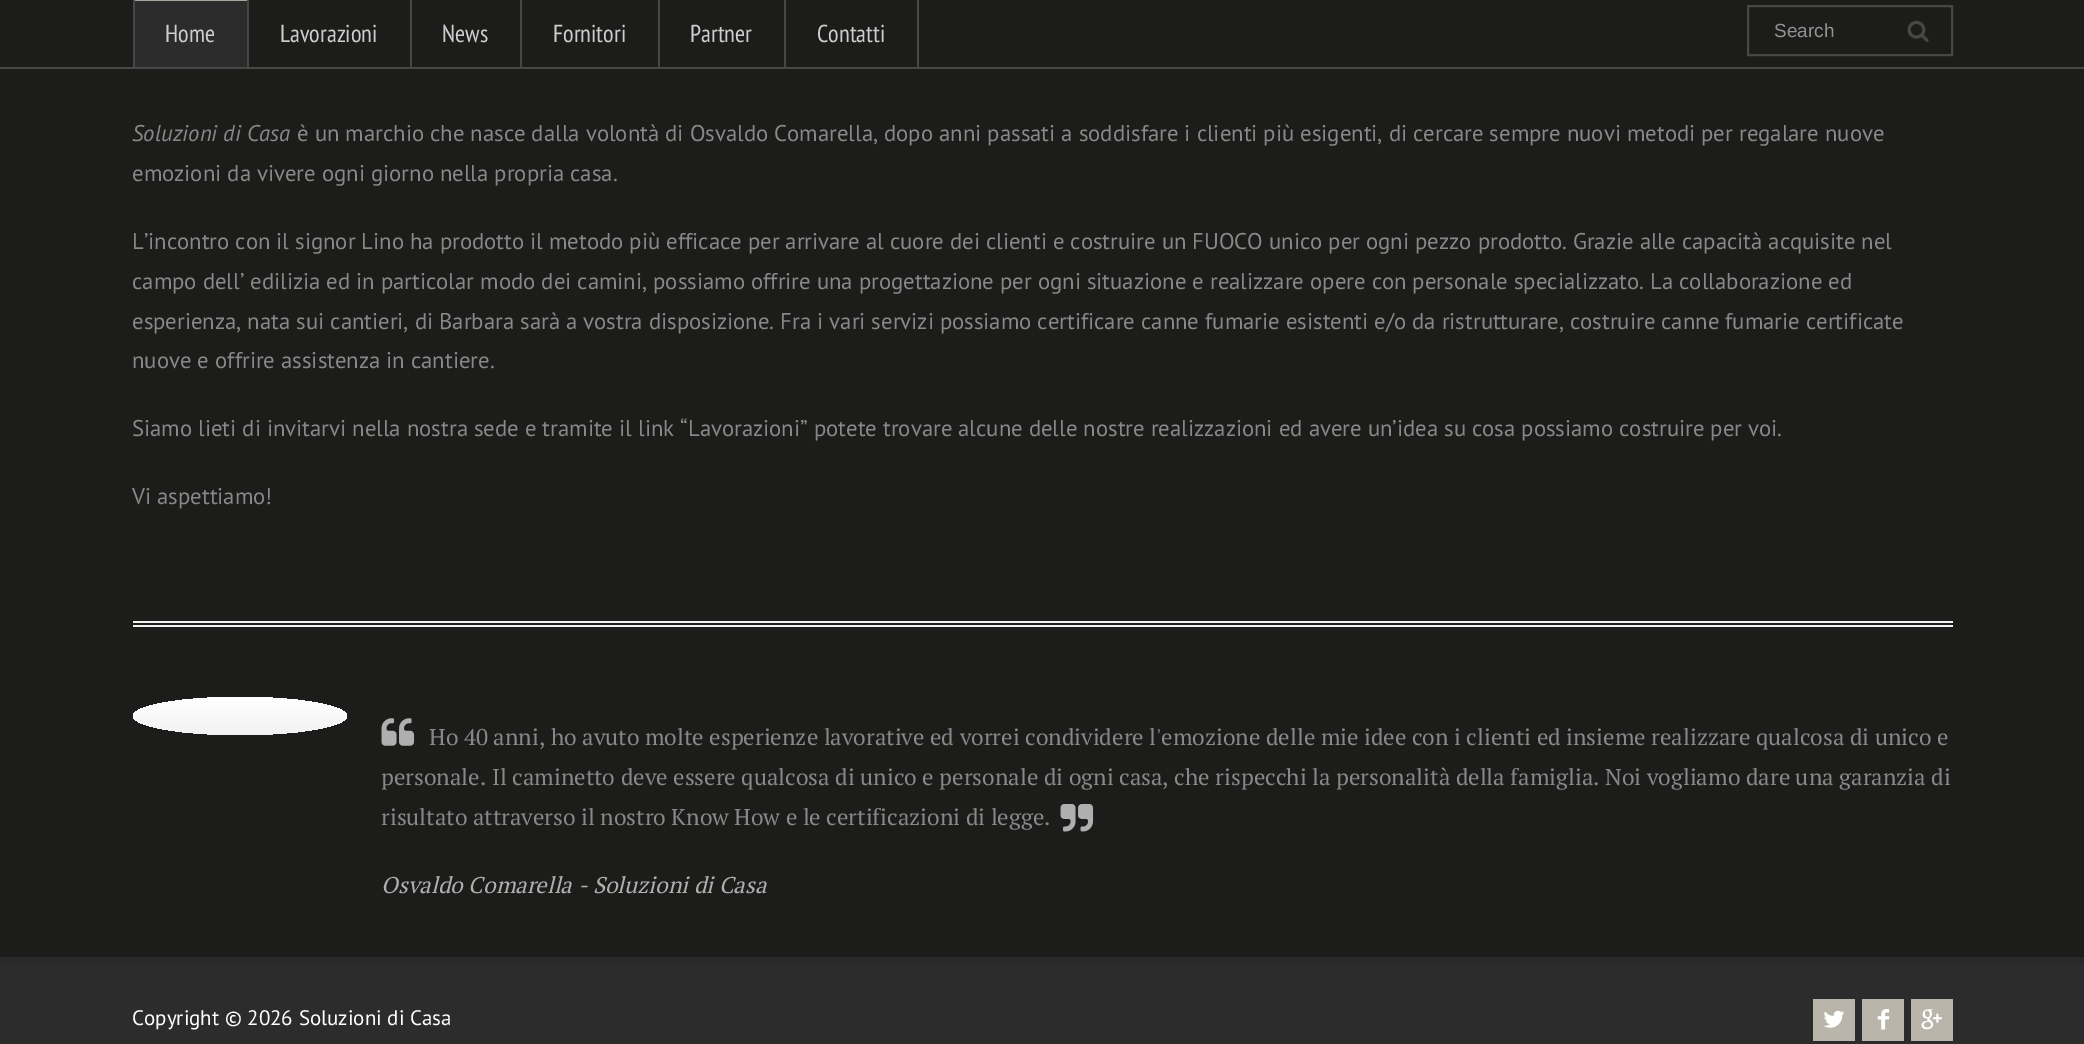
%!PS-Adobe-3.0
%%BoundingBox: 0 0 2084 1044
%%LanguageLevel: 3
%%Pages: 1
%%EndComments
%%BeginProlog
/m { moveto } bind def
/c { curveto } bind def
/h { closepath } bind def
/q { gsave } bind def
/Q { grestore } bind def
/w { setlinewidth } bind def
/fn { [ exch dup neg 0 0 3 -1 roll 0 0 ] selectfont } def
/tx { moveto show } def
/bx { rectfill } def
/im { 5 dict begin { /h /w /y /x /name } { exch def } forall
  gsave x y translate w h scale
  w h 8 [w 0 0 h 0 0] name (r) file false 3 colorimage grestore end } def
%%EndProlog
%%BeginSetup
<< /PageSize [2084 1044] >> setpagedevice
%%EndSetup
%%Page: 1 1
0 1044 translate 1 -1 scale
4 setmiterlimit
0.173 setgray
0 0 2084 1044 bx
0.11 0.11 0.106 setrgbcolor
0 0 2084 67 bx
0.294 0.275 0.275 setrgbcolor
0 67 2084 2 bx
0.173 setgray
135 1 112 66 bx
0.294 0.275 0.275 setrgbcolor
247 0 2 67 bx
133 0 2 67 bx
0.667 0.651 0.608 setrgbcolor
135 0 112 1 bx
/PTSansNarrow-Regular 24.5 fn
0.804 setgray
(Home) 165 42 tx
0.294 0.275 0.275 setrgbcolor
410 0 2 67 bx
0.804 setgray
(Lavorazioni) 280 42 tx
0.294 0.275 0.275 setrgbcolor
520 0 2 67 bx
0.804 setgray
(News) 442 42 tx
0.294 0.275 0.275 setrgbcolor
658 0 2 67 bx
0.804 setgray
(Fornitori) 553 42 tx
0.294 0.275 0.275 setrgbcolor
784 0 2 67 bx
0.804 setgray
(Partner) 690 42 tx
0.294 0.275 0.275 setrgbcolor
917 0 2 67 bx
0.804 setgray
(Contatti) 817 42 tx
0.294 0.275 0.275 setrgbcolor
2 w
1748 6 204 49 rectstroke
/LiberationSans-Regular 19 fn
0.573 setgray
(Search) 1774 37 tx
(image0.raw) 1907 20 22 22 im
0.11 0.11 0.106 setrgbcolor
0 69 2084 888 bx
/PTSans-Italic 22.75 fn
0.533 setgray
(Soluzioni di Casa) 132 141 tx
/PTSans-Regular 22.75 fn
(è un marchio che nasce dalla volontà di Osvaldo Comarella, dopo anni passati a soddisfare i clienti più esigenti, di cercare sempre nuovi metodi per regalare nuove) 297 141 tx
(emozioni da vivere ogni giorno nella propria casa.) 132 181 tx
(L’incontro con il signor Lino ha prodotto il metodo più efficace per arrivare al cuore dei clienti e costruire un FUOCO unico per ogni pezzo prodotto. Grazie alle capacità acquisite nel) 132 249 tx
(campo dell’ edilizia ed in particolar modo dei camini, possiamo offrire una progettazione per ogni situazione e realizzare opere con personale specializzato. La collaborazione ed) 132 289 tx
(esperienza, nata sui cantieri, di Barbara sarà a vostra disposizione. Fra i vari servizi possiamo certificare canne fumarie esistenti e/o da ristrutturare, costruire canne fumarie certificate) 132 329 tx
(nuove e offrire assistenza in cantiere.) 132 368 tx
(Siamo lieti di invitarvi nella nostra sede e tramite il link “Lavorazioni” potete trovare alcune delle nostre realizzazioni ed avere un’idea su cosa possiamo costruire per voi.) 132 436 tx
(Vi aspettiamo!) 132 504 tx
0.941 setgray
133 621 1820 2 bx
133 625 1820 2 bx
q 240 697 m 299 697 347 705.5 347 716 c 347 726.5 299 735 240 735 c 181 735 133 726.5 133 716 c 133 705.5 181 697 240 697 c h clip newpath
<< /ShadingType 2 /ColorSpace /DeviceRGB /Coords [240 697 240 735] /Extend [true true] /Function << /FunctionType 2 /Domain [0 1] /C0 [1 1 1] /C1 [0.949 0.949 0.949] /N 1 >> >> shfill Q
(image1.raw) 381 718 34 28 im
/PTSerif-Regular 22.75 fn
0.533 setgray
(Ho 40 anni, ho avuto molte esperienze lavorative ed vorrei condividere l'emozione delle mie idee con i clienti ed insieme realizzare qualcosa di unico e) 429 745 tx
(personale. Il caminetto deve essere qualcosa di unico e personale di ogni casa, che rispecchi la personalità della famiglia. Noi vogliamo dare una garanzia di) 381 785 tx
(risultato attraverso il nostro Know How e le certificazioni di legge.) 381 825 tx
(image2.raw) 1060 804 34 28 im
/PTSerif-Italic 22.75 fn
0.686 setgray
(Osvaldo Comarella - Soluzioni di Casa) 381 893 tx
0.161 setgray
0 957 2084 7 bx
/PTSans-Regular 21 fn
1 setgray
(Copyright © 2026 Soluzioni di Casa) 132 1025 tx
0.729 0.71 0.667 setrgbcolor
1813 999 42 42 bx
(image3.raw) 1824 1010 20 18 im
1862 999 42 42 bx
(image4.raw) 1877 1009 13 21 im
1911 999 42 42 bx
(image5.raw) 1921 1009 21 21 im
showpage
%%EOF
